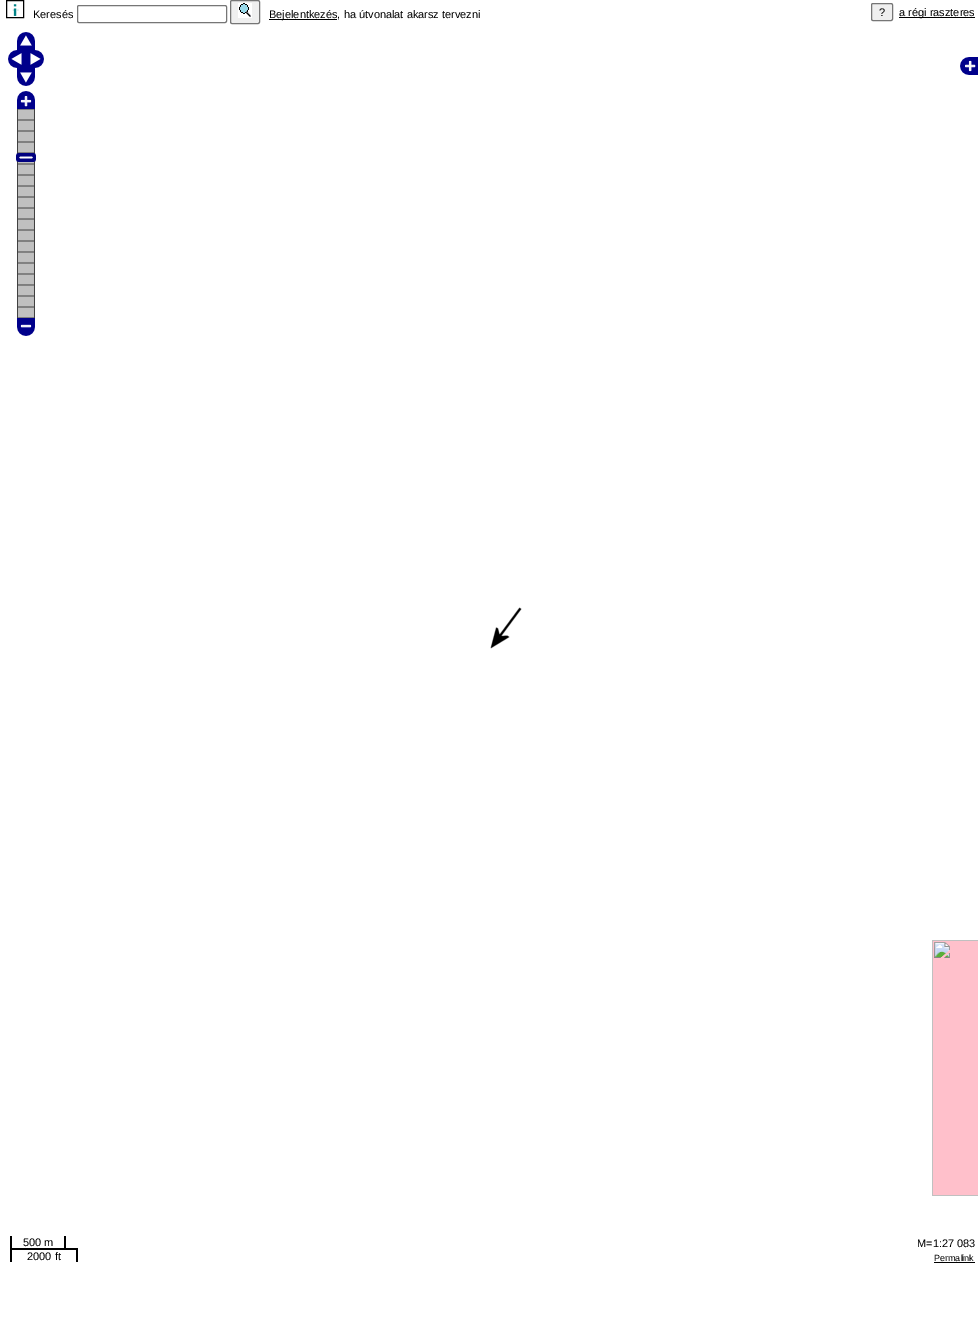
%!PS-Adobe-3.0
%%BoundingBox: 0 0 978 1331
%%LanguageLevel: 3
%%Pages: 1
%%EndComments
%%BeginProlog
/f { fill } bind def
/S { stroke } bind def
/q { gsave } bind def
/Q { grestore } bind def
/fn { [ exch dup neg 0 0 3 -1 roll 0 0 ] selectfont } def
/tx { moveto show } def
/bx { rectfill } def
/rr { 5 dict begin { /r /h /w /y /x } { exch def } forall
  x r add y moveto x w add y 2 copy h add r arct x w add y h add x 1 index r arct
  x y h add x y r arct x y 2 copy exch w add exch r arct closepath end } def
/im { 5 dict begin { /h /w /y /x /name } { exch def } forall
  gsave x y translate w h scale
  w h 8 [w 0 0 h 0 0] name (r) file false 3 colorimage grestore end } def
%%EndProlog
%%BeginSetup
<< /PageSize [978 1331] >> setpagedevice
%%EndSetup
%%Page: 1 1
0 1331 translate 1 -1 scale
4 setmiterlimit
1 setgray
0 0 978 1331 bx
0 setgray
6.5 0.5 17 17 rectstroke
(image0.raw) 12 4 7 12 im
/LiberationSans-Regular 11 fn
(Keresés) 33 18 tx
0.463 setgray
77.5 5.5 149 17 1.5 rr S
0.937 setgray
230.5 0.5 29 23 1.5 rr q f Q
0.463 setgray
S
(image1.raw) 238 3 14 15 im
0 setgray
269 19 68 1 bx
(Bejelentkezés, ha útvonalat akarsz tervezni) 269 18 tx
0.937 setgray
871.5 3.5 21 17 1.5 rr q f Q
0.463 setgray
S
0 setgray
(?) 879 16 tx
899 17 76 1 bx
(a régi raszteres) 899 16 tx
(image2.raw) 17 32 18 18 im
(image3.raw) 8 50 18 18 im
(image4.raw) 26 50 18 18 im
(image5.raw) 17 68 18 18 im
(image6.raw) 17 91 18 18 im
(image7.raw) 17 109 18 209 im
(image8.raw) 16 153 20 9 im
(image9.raw) 17 318 18 18 im
(image10.raw) 960 57 18 18 im
(image11.raw) 490 607 32 42 im
1 0.753 0.796 setrgbcolor
933 941 45 254 bx
(image12.raw) 932 940 46 256 im
0 setgray
64 1236 2 14 bx
10 1236 2 14 bx
(500 m) 23 1246 tx
10 1248 68 2 bx
76 1248 2 14 bx
10 1248 2 14 bx
(2000 ft) 27 1260 tx
(M=1:27 083) 917 1247 tx
/LiberationSans-Regular 9 fn
(Permalink) 934 1261 tx
934 1262 41 1 bx
showpage
%%EOF
